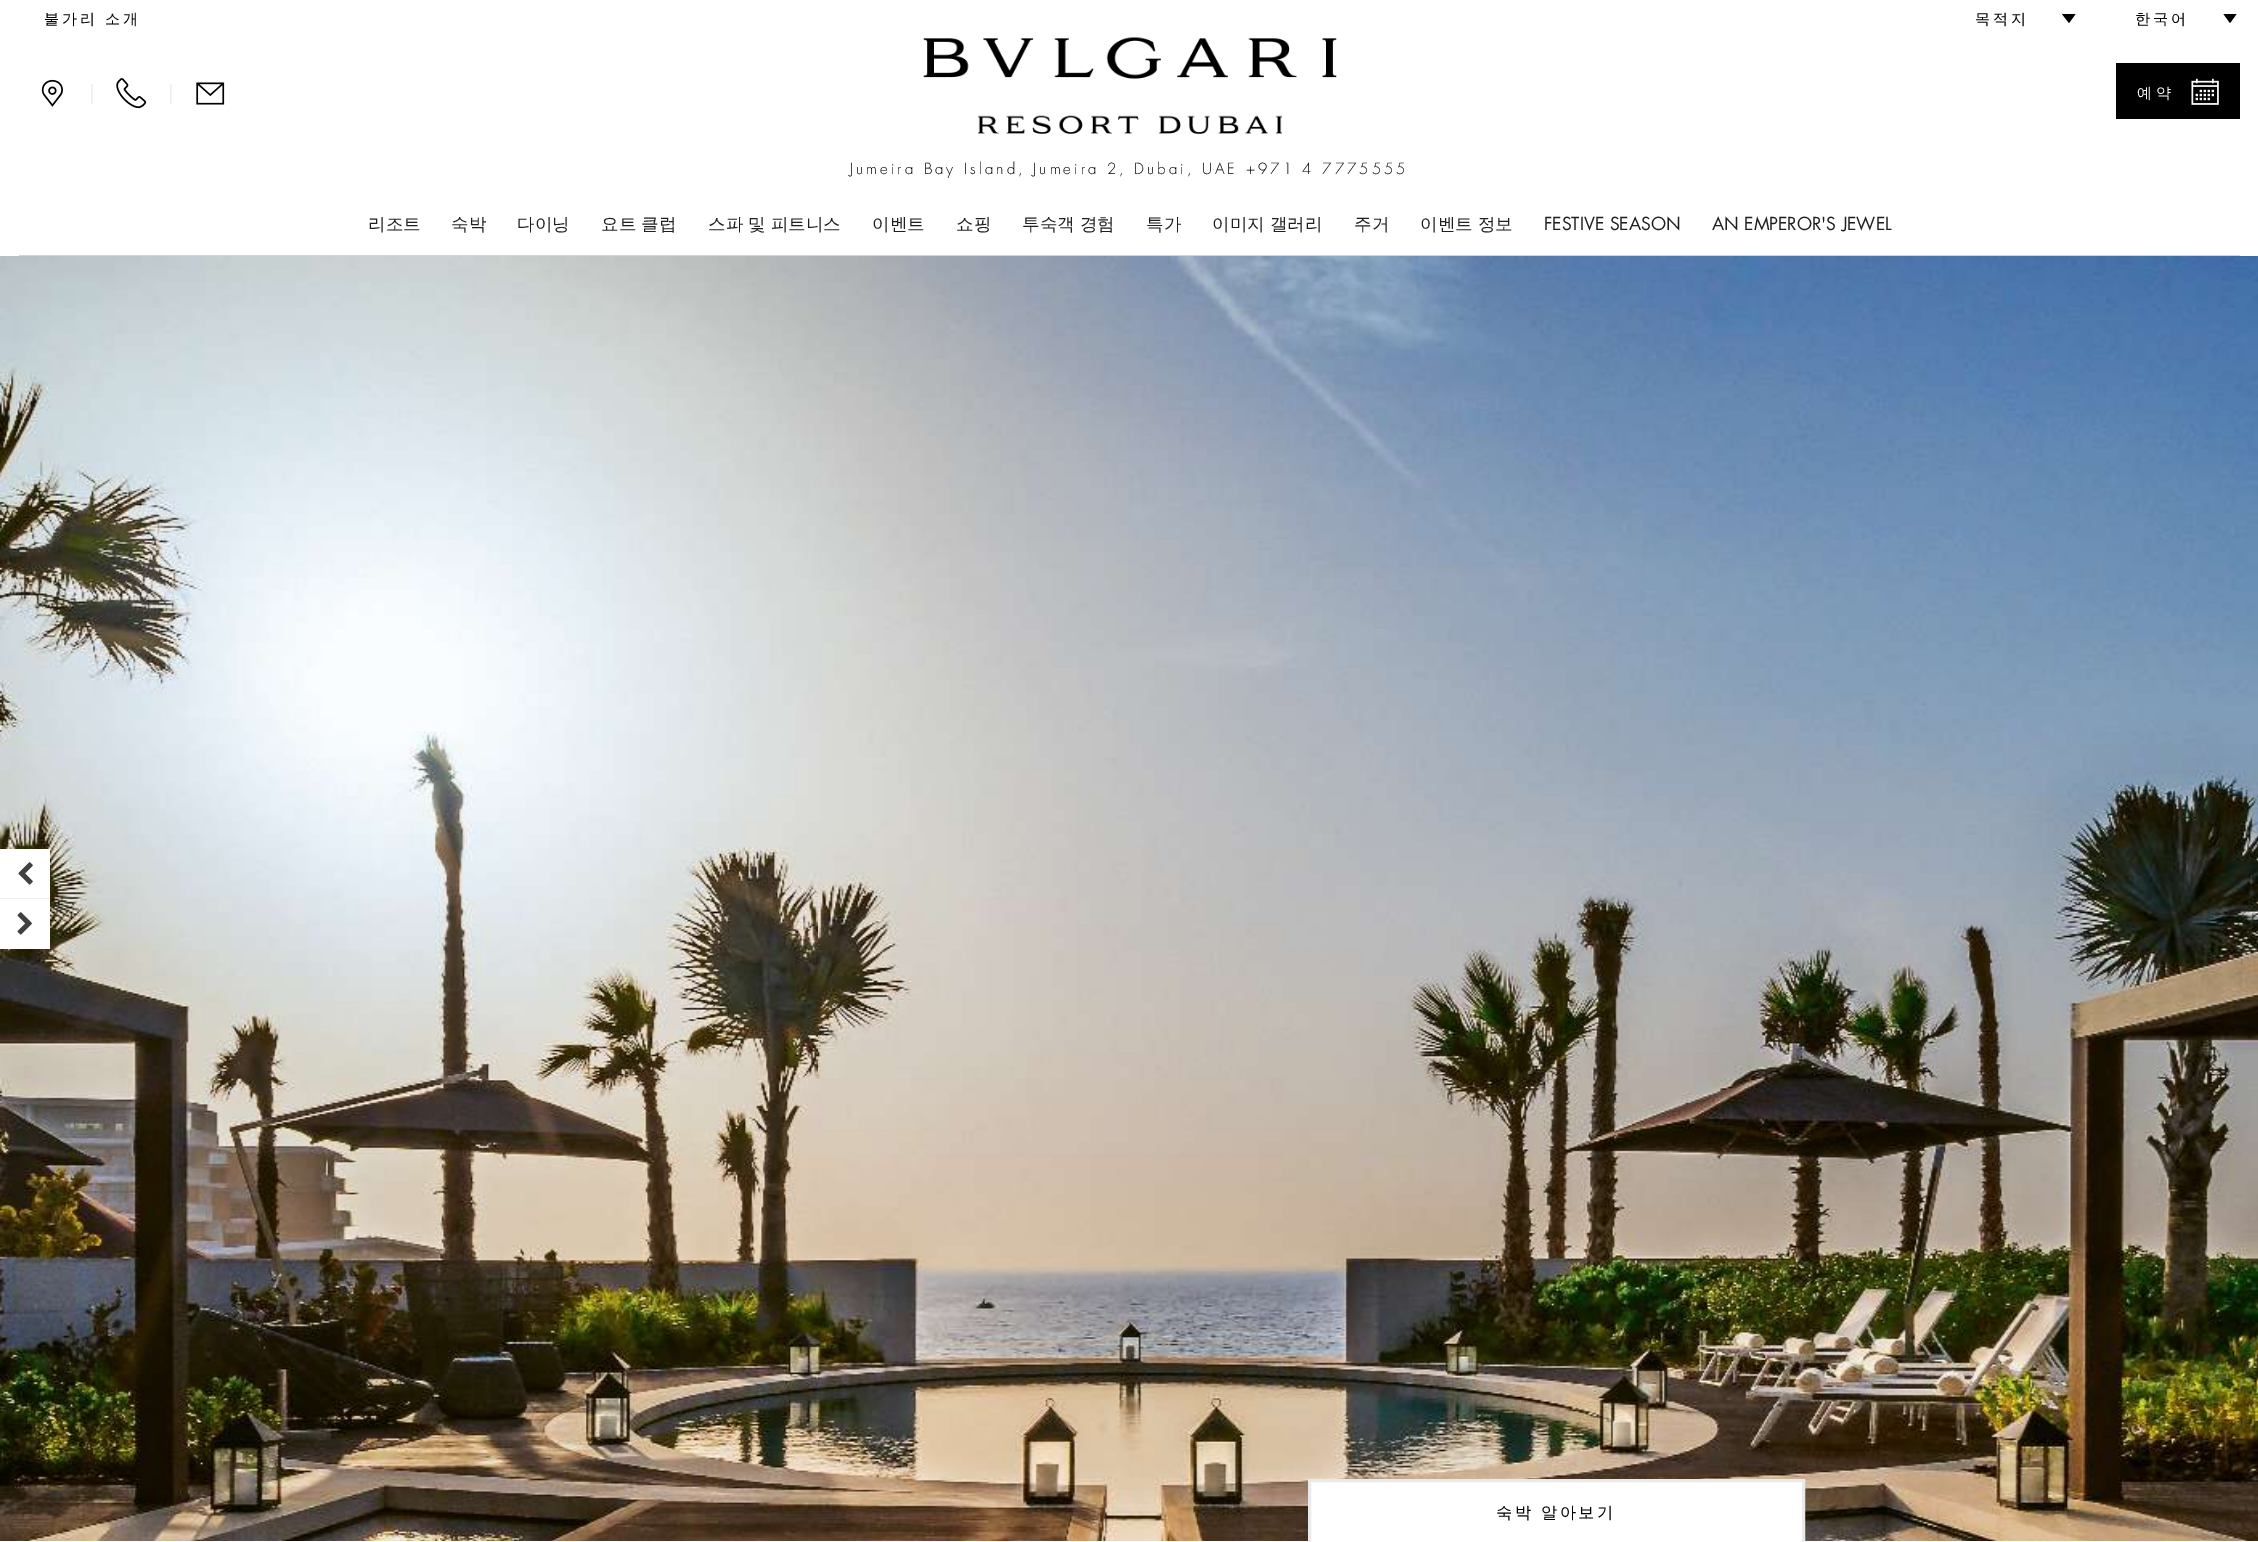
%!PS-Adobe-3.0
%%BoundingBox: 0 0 2258 1542
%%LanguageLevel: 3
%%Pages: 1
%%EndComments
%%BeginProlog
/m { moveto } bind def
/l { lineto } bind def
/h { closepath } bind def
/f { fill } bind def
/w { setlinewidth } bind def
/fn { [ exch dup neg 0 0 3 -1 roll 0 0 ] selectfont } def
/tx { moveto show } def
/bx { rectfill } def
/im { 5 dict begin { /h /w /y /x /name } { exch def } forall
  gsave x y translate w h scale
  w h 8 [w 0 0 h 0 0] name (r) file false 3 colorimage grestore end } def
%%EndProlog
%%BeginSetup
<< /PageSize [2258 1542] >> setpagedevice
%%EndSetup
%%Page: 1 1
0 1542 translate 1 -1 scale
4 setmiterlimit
1 setgray
0 0 2258 1542 bx
/WenQuanYiZenHei-Medium 15 fn
0 setgray
44 24 m 3 0 (불가리 소개) ashow
1975 24 m 3 0 (목적지) ashow
2075.5 14 m 2069 23 l 2062 14 l h f
2135 24 m 3 0 (한국어) ashow
2236.5 14 m 2230 23 l 2223.5 14 l h f
0.827 setgray
19 255 2221 1 bx
(image0.raw) 41 79 22 28 im
/Futura-Regular 20 fn
0.941 0.929 0.91 setrgbcolor
(|) 86 100 tx
(image1.raw) 116 78 31 31 im
(|) 165 100 tx
(image2.raw) 196 82 29 23 im
0 setgray
2116 63 124 56 bx
/WenQuanYiZenHei-Medium 15 fn
1 setgray
2137 98 m 4 0 (예약) ashow
(image3.raw) 2191 78 28 27 im
(image4.raw) 923 37 414 97 im
/Futura-Light 15 fn
0 setgray
850 174 m 3 0 (Jumeira Bay Island, Jumeira 2, Dubai, UAE +971 4 7775555) ashow
/WenQuanYiZenHei-Medium 17.5 fn
0.122 setgray
(리조트) 368 230 tx
(숙박) 451 230 tx
(다이닝) 517 230 tx
(요트 클럽) 601 230 tx
(스파 및 피트니스) 708 230 tx
(이벤트) 872 230 tx
(쇼핑) 956 230 tx
(투숙객 경험) 1022 230 tx
(특가) 1146 230 tx
(이미지 갤러리) 1212 230 tx
(주거) 1354 230 tx
(이벤트 정보) 1420 230 tx
/Futura-Regular 17.5 fn
(FESTIVE SEASON) 1544 230 tx
(AN EMPEROR'S JEWEL) 1712 230 tx
(image5.raw) 0 256 2258 1285 im
1 setgray
0 849 50 49 bx
0.941 0.929 0.91 setrgbcolor
0 898 50 1 bx
(image6.raw) 18 862 15 23 im
1 setgray
0 899 50 50 bx
(image7.raw) 17 912 15 23 im
1311 1482 491 59 bx
0.918 setgray
3 w
1309.5 1480.5 494 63 rectstroke
/WenQuanYiZenHei-Medium 16.25 fn
0 setgray
1496 1518 m 2.5 0 (숙박 알아보기) ashow
showpage
%%EOF
